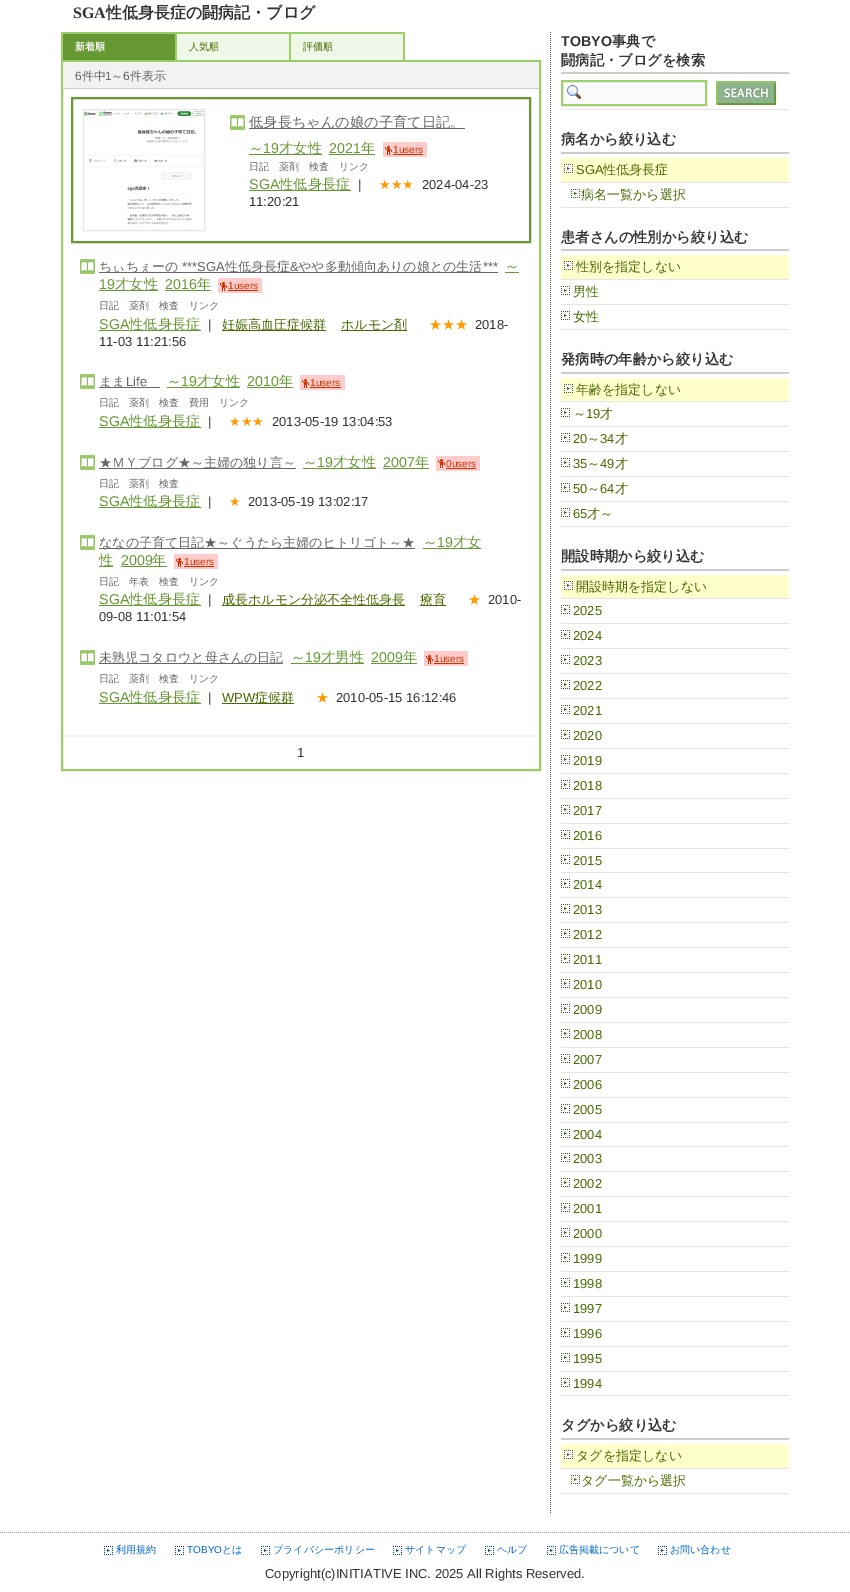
%!PS-Adobe-3.0
%%BoundingBox: 0 0 850 1592
%%LanguageLevel: 3
%%Pages: 1
%%EndComments
%%BeginProlog
/w { setlinewidth } bind def
/fn { [ exch dup neg 0 0 3 -1 roll 0 0 ] selectfont } def
/tx { moveto show } def
/bx { rectfill } def
/im { 5 dict begin { /h /w /y /x /name } { exch def } forall
  gsave x y translate w h scale
  w h 8 [w 0 0 h 0 0] name (r) file false 3 colorimage grestore end } def
%%EndProlog
%%BeginSetup
<< /PageSize [850 1592] >> setpagedevice
%%EndSetup
%%Page: 1 1
0 1592 translate 1 -1 scale
4 setmiterlimit
1 setgray
0 0 850 1592 bx
/LiberationSerif-Bold 16 fn
0.2 setgray
(SGA) 73 18 tx
/WenQuanYiZenHei-Bold 16 fn
(性低身長症の闘病記・ブログ) 106 18 tx
(image0.raw) 550 32 1 1481 im
0.608 0.804 0.412 setrgbcolor
61 32 344 2 bx
175 32 2 28 bx
61 32 2 28 bx
0.4 0.6 0.2 setrgbcolor
63 34 112 26 bx
/WenQuanYiZenHei-Bold 10 fn
1 setgray
(新着順) 75 50 tx
0.937 0.969 0.91 setrgbcolor
177 34 112 26 bx
0.608 0.804 0.412 setrgbcolor
289 32 2 28 bx
/WenQuanYiZenHei-Medium 10 fn
0.282 0.416 0 setrgbcolor
(人気順) 189 50 tx
0.937 0.969 0.91 setrgbcolor
291 34 112 26 bx
0.608 0.804 0.412 setrgbcolor
403 32 2 28 bx
0.282 0.416 0 setrgbcolor
(評価順) 303 50 tx
0.608 0.804 0.412 setrgbcolor
2 w
62 61 478 709 rectstroke
0.949 setgray
63 62 476 26 bx
0.8 setgray
63 88 476 1 bx
/LiberationSans-Regular 12 fn
0.4 setgray
(6) 75 80 tx
/WenQuanYiZenHei-Medium 12 fn
(件中) 82 80 tx
/LiberationSans-Regular 12 fn
(1) 105 80 tx
/WenQuanYiZenHei-Medium 12 fn
(～) 111 80 tx
/LiberationSans-Regular 12 fn
(6) 123 80 tx
/WenQuanYiZenHei-Medium 12 fn
(件表示) 130 80 tx
0.4 0.6 0.2 setrgbcolor
72 98 458 144 rectstroke
0.898 setgray
1 w
83.5 109.5 121 121 rectstroke
(image1.raw) 84 111 120 119 im
(image2.raw) 230 115 15 15 im
0.4 setgray
249 128 216 1 bx
/WenQuanYiZenHei-Medium 14.25 fn
(低身長ちゃんの娘の子育て日記。) 249 127 tx
0.4 0.6 0.2 setrgbcolor
(～) 249 153 tx
249 154 73 1 bx
/LiberationSans-Regular 14.25 fn
(19) 263 153 tx
/WenQuanYiZenHei-Medium 14.25 fn
(才女性) 279 153 tx
/LiberationSans-Regular 14.25 fn
(2021) 329 153 tx
329 154 46 1 bx
/WenQuanYiZenHei-Medium 14.25 fn
(年) 361 153 tx
1 0.8 0.8 setrgbcolor
383 142 44 15 bx
(image3.raw) 385 146 7 9 im
/LiberationSans-Regular 10 fn
0.8 0.2 0 setrgbcolor
(1users) 393 153 tx
393 154 30 1 bx
/WenQuanYiZenHei-Medium 10 fn
0.4 setgray
(日記　薬剤　検査　リンク) 249 170 tx
/LiberationSans-Regular 14.25 fn
0.4 0.6 0.2 setrgbcolor
(SGA) 249 189 tx
249 190 102 1 bx
/WenQuanYiZenHei-Medium 14.25 fn
(性低身長症) 279 189 tx
/LiberationSans-Regular 13 fn
0.2 setgray
(|) 358 189 tx
/DejaVuSans-Regular 13 fn
1 0.6 0 setrgbcolor
(★★★) 379 189 tx
/LiberationSans-Regular 13 fn
0.2 setgray
(2024-04-23) 422 189 tx
(11:20:21) 249 206 tx
(image2.raw) 80 259 15 15 im
0.4 setgray
99 272 399 1 bx
/WenQuanYiZenHei-Medium 13 fn
(ちぃちぇーの) 99 271 tx
/LiberationSans-Regular 13 fn
(***SGA) 182 271 tx
/WenQuanYiZenHei-Medium 13 fn
(性低身長症) 225 271 tx
/LiberationSans-Regular 13 fn
(&) 290 271 tx
/WenQuanYiZenHei-Medium 13 fn
(やや多動傾向ありの娘との生活) 298 271 tx
/LiberationSans-Regular 13 fn
(***) 483 271 tx
/WenQuanYiZenHei-Medium 14.25 fn
0.4 0.6 0.2 setrgbcolor
(～) 505 271 tx
505 272 14 1 bx
/LiberationSans-Regular 14.25 fn
(19) 99 289 tx
99 290 59 1 bx
/WenQuanYiZenHei-Medium 14.25 fn
(才女性) 115 289 tx
/LiberationSans-Regular 14.25 fn
(2016) 165 289 tx
165 290 46 1 bx
/WenQuanYiZenHei-Medium 14.25 fn
(年) 197 289 tx
1 0.8 0.8 setrgbcolor
218 278 44 15 bx
(image3.raw) 220 282 7 9 im
/LiberationSans-Regular 10 fn
0.8 0.2 0 setrgbcolor
(1users) 228 289 tx
228 290 30 1 bx
/WenQuanYiZenHei-Medium 10 fn
0.4 setgray
(日記　薬剤　検査　リンク) 99 309 tx
/LiberationSans-Regular 14.25 fn
0.4 0.6 0.2 setrgbcolor
(SGA) 99 329 tx
99 330 102 1 bx
/WenQuanYiZenHei-Medium 14.25 fn
(性低身長症) 129 329 tx
/LiberationSans-Regular 13 fn
0.2 setgray
(|) 208 329 tx
0.282 0.416 0 setrgbcolor
222 330 104 1 bx
/WenQuanYiZenHei-Medium 13 fn
(妊娠高血圧症候群) 222 329 tx
341 330 66 1 bx
(ホルモン剤) 341 329 tx
1 0.6 0 setrgbcolor
(★★★) 429 329 tx
/LiberationSans-Regular 13 fn
0.2 setgray
(2018-) 475 329 tx
(11-03 11:21:56) 99 346 tx
(image2.raw) 80 374 15 15 im
0.4 setgray
99 387 61 1 bx
/WenQuanYiZenHei-Medium 13 fn
(まま) 99 386 tx
/LiberationSans-Regular 13 fn
(Life) 126 386 tx
/WenQuanYiZenHei-Medium 14.25 fn
0.4 0.6 0.2 setrgbcolor
(～) 167 386 tx
167 387 73 1 bx
/LiberationSans-Regular 14.25 fn
(19) 181 386 tx
/WenQuanYiZenHei-Medium 14.25 fn
(才女性) 197 386 tx
/LiberationSans-Regular 14.25 fn
(2010) 247 386 tx
247 387 46 1 bx
/WenQuanYiZenHei-Medium 14.25 fn
(年) 279 386 tx
1 0.8 0.8 setrgbcolor
300 375 45 15 bx
(image3.raw) 302 379 7 9 im
/LiberationSans-Regular 10 fn
0.8 0.2 0 setrgbcolor
(1users) 310 386 tx
310 387 31 1 bx
/WenQuanYiZenHei-Medium 10 fn
0.4 setgray
(日記　薬剤　検査　費用　リンク) 99 406 tx
/LiberationSans-Regular 14.25 fn
0.4 0.6 0.2 setrgbcolor
(SGA) 99 426 tx
99 427 102 1 bx
/WenQuanYiZenHei-Medium 14.25 fn
(性低身長症) 129 426 tx
/LiberationSans-Regular 13 fn
0.2 setgray
(|) 208 426 tx
/DejaVuSans-Regular 13 fn
1 0.6 0 setrgbcolor
(★★★) 229 426 tx
/LiberationSans-Regular 13 fn
0.2 setgray
(2013-05-19 13:04:53) 272 426 tx
(image2.raw) 80 455 15 15 im
0.4 setgray
99 468 197 1 bx
/WenQuanYiZenHei-Medium 13 fn
(★ＭＹブログ★～主婦の独り言～) 99 467 tx
/WenQuanYiZenHei-Medium 14.25 fn
0.4 0.6 0.2 setrgbcolor
(～) 303 467 tx
303 468 73 1 bx
/LiberationSans-Regular 14.25 fn
(19) 317 467 tx
/WenQuanYiZenHei-Medium 14.25 fn
(才女性) 333 467 tx
/LiberationSans-Regular 14.25 fn
(2007) 383 467 tx
383 468 46 1 bx
/WenQuanYiZenHei-Medium 14.25 fn
(年) 415 467 tx
1 0.8 0.8 setrgbcolor
436 456 44 15 bx
(image3.raw) 438 459 7 9 im
/LiberationSans-Regular 10 fn
0.8 0.2 0 setrgbcolor
(0users) 446 467 tx
446 468 30 1 bx
/WenQuanYiZenHei-Medium 10 fn
0.4 setgray
(日記　薬剤　検査) 99 487 tx
/LiberationSans-Regular 14.25 fn
0.4 0.6 0.2 setrgbcolor
(SGA) 99 506 tx
99 507 102 1 bx
/WenQuanYiZenHei-Medium 14.25 fn
(性低身長症) 129 506 tx
/LiberationSans-Regular 13 fn
0.2 setgray
(|) 208 506 tx
/DejaVuSans-Regular 13 fn
1 0.6 0 setrgbcolor
(★) 229 506 tx
/LiberationSans-Regular 13 fn
0.2 setgray
(2013-05-19 13:02:17) 248 506 tx
(image2.raw) 80 535 15 15 im
0.4 setgray
99 548 316 1 bx
/WenQuanYiZenHei-Medium 13 fn
(ななの子育て日記★～ぐうたら主婦のヒトリゴト～★) 99 547 tx
/WenQuanYiZenHei-Medium 14.25 fn
0.4 0.6 0.2 setrgbcolor
(～) 423 547 tx
423 548 58 1 bx
/LiberationSans-Regular 14.25 fn
(19) 437 547 tx
/WenQuanYiZenHei-Medium 14.25 fn
(才女) 453 547 tx
99 566 14 1 bx
(性) 99 565 tx
/LiberationSans-Regular 14.25 fn
(2009) 121 565 tx
121 566 46 1 bx
/WenQuanYiZenHei-Medium 14.25 fn
(年) 152 565 tx
1 0.8 0.8 setrgbcolor
174 554 44 15 bx
(image3.raw) 176 558 7 9 im
/LiberationSans-Regular 10 fn
0.8 0.2 0 setrgbcolor
(1users) 184 565 tx
184 566 30 1 bx
/WenQuanYiZenHei-Medium 10 fn
0.4 setgray
(日記　年表　検査　リンク) 99 585 tx
/LiberationSans-Regular 14.25 fn
0.4 0.6 0.2 setrgbcolor
(SGA) 99 604 tx
99 605 102 1 bx
/WenQuanYiZenHei-Medium 14.25 fn
(性低身長症) 129 604 tx
/LiberationSans-Regular 13 fn
0.2 setgray
(|) 208 604 tx
0.282 0.416 0 setrgbcolor
222 605 183 1 bx
/WenQuanYiZenHei-Medium 13 fn
(成長ホルモン分泌不全性低身長) 222 604 tx
420 605 26 1 bx
(療育) 420 604 tx
1 0.6 0 setrgbcolor
(★) 468 604 tx
/LiberationSans-Regular 13 fn
0.2 setgray
(2010-) 488 604 tx
(09-08 11:01:54) 99 621 tx
(image2.raw) 80 650 15 15 im
0.4 setgray
99 663 184 1 bx
/WenQuanYiZenHei-Medium 13 fn
(未熟児コタロウと母さんの日記) 99 662 tx
/WenQuanYiZenHei-Medium 14.25 fn
0.4 0.6 0.2 setrgbcolor
(～) 291 662 tx
291 663 73 1 bx
/LiberationSans-Regular 14.25 fn
(19) 305 662 tx
/WenQuanYiZenHei-Medium 14.25 fn
(才男性) 321 662 tx
/LiberationSans-Regular 14.25 fn
(2009) 371 662 tx
371 663 46 1 bx
/WenQuanYiZenHei-Medium 14.25 fn
(年) 403 662 tx
1 0.8 0.8 setrgbcolor
424 651 44 15 bx
(image3.raw) 426 655 7 9 im
/LiberationSans-Regular 10 fn
0.8 0.2 0 setrgbcolor
(1users) 434 662 tx
434 663 30 1 bx
/WenQuanYiZenHei-Medium 10 fn
0.4 setgray
(日記　薬剤　検査　リンク) 99 682 tx
/LiberationSans-Regular 14.25 fn
0.4 0.6 0.2 setrgbcolor
(SGA) 99 702 tx
99 703 102 1 bx
/WenQuanYiZenHei-Medium 14.25 fn
(性低身長症) 129 702 tx
/LiberationSans-Regular 13 fn
0.2 setgray
(|) 208 702 tx
0.282 0.416 0 setrgbcolor
(WPW) 222 702 tx
222 703 72 1 bx
/WenQuanYiZenHei-Medium 13 fn
(症候群) 255 702 tx
1 0.6 0 setrgbcolor
(★) 316 702 tx
/LiberationSans-Regular 13 fn
0.2 setgray
(2010-05-15 16:12:46) 336 702 tx
0.949 setgray
63 735 476 2 bx
0.2 setgray
(1) 297 757 tx
0.8 setgray
561 72 228 2 bx
/LiberationSans-Bold 14.25 fn
0.2 setgray
(TOBYO) 561 46 tx
/WenQuanYiZenHei-Bold 14.25 fn
(事典で) 612 46 tx
(闘病記・ブログを検索) 561 65 tx
0.898 setgray
561 109 228 1 bx
0.98 setgray
563 82 142 22 bx
(image4.raw) 564 84 17 15 im
0.627 0.812 0.439 setrgbcolor
2 w
562 81 144 24 rectstroke
(image5.raw) 716 81 60 24 im
0.8 setgray
561 152 228 2 bx
0.2 setgray
(病名から絞り込む) 561 144 tx
1 1 0.8 setrgbcolor
561 158 228 24 bx
0.898 setgray
561 182 228 1 bx
(image6.raw) 564 164 9 9 im
/LiberationSans-Regular 13 fn
0.282 0.416 0 setrgbcolor
(SGA) 576 174 tx
/WenQuanYiZenHei-Medium 13 fn
(性低身長症) 603 174 tx
0.898 setgray
561 207 228 1 bx
(image6.raw) 571 189 9 9 im
0.282 0.416 0 setrgbcolor
(病名一覧から選択) 581 199 tx
0.8 setgray
561 249 228 2 bx
/WenQuanYiZenHei-Bold 14.25 fn
0.2 setgray
(患者さんの性別から絞り込む) 561 242 tx
1 1 0.8 setrgbcolor
561 255 228 24 bx
0.898 setgray
561 279 228 1 bx
(image6.raw) 564 261 9 9 im
/WenQuanYiZenHei-Medium 13 fn
0.282 0.416 0 setrgbcolor
(性別を指定しない) 576 271 tx
0.898 setgray
561 304 228 1 bx
(image6.raw) 561 286 9 9 im
0.282 0.416 0 setrgbcolor
(男性) 573 296 tx
0.898 setgray
561 329 228 1 bx
(image6.raw) 561 311 9 9 im
0.282 0.416 0 setrgbcolor
(女性) 573 321 tx
0.8 setgray
561 372 228 2 bx
/WenQuanYiZenHei-Bold 14.25 fn
0.2 setgray
(発病時の年齢から絞り込む) 561 364 tx
1 1 0.8 setrgbcolor
561 378 228 23 bx
0.898 setgray
561 401 228 1 bx
(image6.raw) 564 384 9 9 im
/WenQuanYiZenHei-Medium 13 fn
0.282 0.416 0 setrgbcolor
(年齢を指定しない) 576 394 tx
0.898 setgray
561 426 228 1 bx
(image6.raw) 561 408 9 9 im
0.282 0.416 0 setrgbcolor
(～) 573 418 tx
/LiberationSans-Regular 13 fn
(19) 586 418 tx
/WenQuanYiZenHei-Medium 13 fn
(才) 600 418 tx
0.898 setgray
561 451 228 1 bx
(image6.raw) 561 433 9 9 im
/LiberationSans-Regular 13 fn
0.282 0.416 0 setrgbcolor
(20) 573 443 tx
/WenQuanYiZenHei-Medium 13 fn
(～) 587 443 tx
/LiberationSans-Regular 13 fn
(34) 600 443 tx
/WenQuanYiZenHei-Medium 13 fn
(才) 615 443 tx
0.898 setgray
561 476 228 1 bx
(image6.raw) 561 458 9 9 im
/LiberationSans-Regular 13 fn
0.282 0.416 0 setrgbcolor
(35) 573 468 tx
/WenQuanYiZenHei-Medium 13 fn
(～) 587 468 tx
/LiberationSans-Regular 13 fn
(49) 600 468 tx
/WenQuanYiZenHei-Medium 13 fn
(才) 615 468 tx
0.898 setgray
561 501 228 1 bx
(image6.raw) 561 483 9 9 im
/LiberationSans-Regular 13 fn
0.282 0.416 0 setrgbcolor
(50) 573 493 tx
/WenQuanYiZenHei-Medium 13 fn
(～) 587 493 tx
/LiberationSans-Regular 13 fn
(64) 600 493 tx
/WenQuanYiZenHei-Medium 13 fn
(才) 615 493 tx
0.898 setgray
561 526 228 1 bx
(image6.raw) 561 508 9 9 im
/LiberationSans-Regular 13 fn
0.282 0.416 0 setrgbcolor
(65) 573 518 tx
/WenQuanYiZenHei-Medium 13 fn
(才～) 587 518 tx
0.8 setgray
561 569 228 2 bx
/WenQuanYiZenHei-Bold 14.25 fn
0.2 setgray
(開設時期から絞り込む) 561 561 tx
1 1 0.8 setrgbcolor
561 575 228 23 bx
0.898 setgray
561 598 228 1 bx
(image6.raw) 564 581 9 9 im
/WenQuanYiZenHei-Medium 13 fn
0.282 0.416 0 setrgbcolor
(開設時期を指定しない) 576 591 tx
0.898 setgray
561 623 228 1 bx
(image6.raw) 561 605 9 9 im
/LiberationSans-Regular 13 fn
0.282 0.416 0 setrgbcolor
(2025) 573 615 tx
0.898 setgray
561 648 228 1 bx
(image6.raw) 561 630 9 9 im
0.282 0.416 0 setrgbcolor
(2024) 573 640 tx
0.898 setgray
561 673 228 1 bx
(image6.raw) 561 655 9 9 im
0.282 0.416 0 setrgbcolor
(2023) 573 665 tx
0.898 setgray
561 698 228 1 bx
(image6.raw) 561 680 9 9 im
0.282 0.416 0 setrgbcolor
(2022) 573 690 tx
0.898 setgray
561 723 228 1 bx
(image6.raw) 561 705 9 9 im
0.282 0.416 0 setrgbcolor
(2021) 573 715 tx
0.898 setgray
561 748 228 1 bx
(image6.raw) 561 730 9 9 im
0.282 0.416 0 setrgbcolor
(2020) 573 740 tx
0.898 setgray
561 773 228 1 bx
(image6.raw) 561 755 9 9 im
0.282 0.416 0 setrgbcolor
(2019) 573 765 tx
0.898 setgray
561 798 228 1 bx
(image6.raw) 561 780 9 9 im
0.282 0.416 0 setrgbcolor
(2018) 573 790 tx
0.898 setgray
561 823 228 1 bx
(image6.raw) 561 805 9 9 im
0.282 0.416 0 setrgbcolor
(2017) 573 815 tx
0.898 setgray
561 848 228 1 bx
(image6.raw) 561 830 9 9 im
0.282 0.416 0 setrgbcolor
(2016) 573 840 tx
0.898 setgray
561 872 228 1 bx
(image6.raw) 561 855 9 9 im
0.282 0.416 0 setrgbcolor
(2015) 573 865 tx
0.898 setgray
561 897 228 1 bx
(image6.raw) 561 879 9 9 im
0.282 0.416 0 setrgbcolor
(2014) 573 889 tx
0.898 setgray
561 922 228 1 bx
(image6.raw) 561 904 9 9 im
0.282 0.416 0 setrgbcolor
(2013) 573 914 tx
0.898 setgray
561 947 228 1 bx
(image6.raw) 561 929 9 9 im
0.282 0.416 0 setrgbcolor
(2012) 573 939 tx
0.898 setgray
561 972 228 1 bx
(image6.raw) 561 954 9 9 im
0.282 0.416 0 setrgbcolor
(2011) 573 964 tx
0.898 setgray
561 997 228 1 bx
(image6.raw) 561 979 9 9 im
0.282 0.416 0 setrgbcolor
(2010) 573 989 tx
0.898 setgray
561 1022 228 1 bx
(image6.raw) 561 1004 9 9 im
0.282 0.416 0 setrgbcolor
(2009) 573 1014 tx
0.898 setgray
561 1047 228 1 bx
(image6.raw) 561 1029 9 9 im
0.282 0.416 0 setrgbcolor
(2008) 573 1039 tx
0.898 setgray
561 1072 228 1 bx
(image6.raw) 561 1054 9 9 im
0.282 0.416 0 setrgbcolor
(2007) 573 1064 tx
0.898 setgray
561 1097 228 1 bx
(image6.raw) 561 1079 9 9 im
0.282 0.416 0 setrgbcolor
(2006) 573 1089 tx
0.898 setgray
561 1122 228 1 bx
(image6.raw) 561 1104 9 9 im
0.282 0.416 0 setrgbcolor
(2005) 573 1114 tx
0.898 setgray
561 1146 228 1 bx
(image6.raw) 561 1129 9 9 im
0.282 0.416 0 setrgbcolor
(2004) 573 1139 tx
0.898 setgray
561 1171 228 1 bx
(image6.raw) 561 1153 9 9 im
0.282 0.416 0 setrgbcolor
(2003) 573 1163 tx
0.898 setgray
561 1196 228 1 bx
(image6.raw) 561 1178 9 9 im
0.282 0.416 0 setrgbcolor
(2002) 573 1188 tx
0.898 setgray
561 1221 228 1 bx
(image6.raw) 561 1203 9 9 im
0.282 0.416 0 setrgbcolor
(2001) 573 1213 tx
0.898 setgray
561 1246 228 1 bx
(image6.raw) 561 1228 9 9 im
0.282 0.416 0 setrgbcolor
(2000) 573 1238 tx
0.898 setgray
561 1271 228 1 bx
(image6.raw) 561 1253 9 9 im
0.282 0.416 0 setrgbcolor
(1999) 573 1263 tx
0.898 setgray
561 1296 228 1 bx
(image6.raw) 561 1278 9 9 im
0.282 0.416 0 setrgbcolor
(1998) 573 1288 tx
0.898 setgray
561 1321 228 1 bx
(image6.raw) 561 1303 9 9 im
0.282 0.416 0 setrgbcolor
(1997) 573 1313 tx
0.898 setgray
561 1346 228 1 bx
(image6.raw) 561 1328 9 9 im
0.282 0.416 0 setrgbcolor
(1996) 573 1338 tx
0.898 setgray
561 1371 228 1 bx
(image6.raw) 561 1353 9 9 im
0.282 0.416 0 setrgbcolor
(1995) 573 1363 tx
0.898 setgray
561 1395 228 1 bx
(image6.raw) 561 1378 9 9 im
0.282 0.416 0 setrgbcolor
(1994) 573 1388 tx
0.8 setgray
561 1438 228 2 bx
/WenQuanYiZenHei-Bold 14.25 fn
0.2 setgray
(タグから絞り込む) 561 1430 tx
1 1 0.8 setrgbcolor
561 1444 228 24 bx
0.898 setgray
561 1468 228 1 bx
(image6.raw) 564 1450 9 9 im
/WenQuanYiZenHei-Medium 13 fn
0.282 0.416 0 setrgbcolor
(タグを指定しない) 576 1460 tx
0.898 setgray
561 1493 228 1 bx
(image6.raw) 571 1475 9 9 im
0.282 0.416 0 setrgbcolor
(タグ一覧から選択) 581 1485 tx
(image7.raw) 0 1532 849 1 im
(image8.raw) 104 1546 9 9 im
/WenQuanYiZenHei-Medium 10 fn
0 0.4 0.8 setrgbcolor
(利用規約) 116 1553 tx
(image8.raw) 175 1546 9 9 im
/LiberationSans-Regular 10 fn
(TOBYO) 187 1553 tx
/WenQuanYiZenHei-Medium 10 fn
(とは) 222 1553 tx
(image8.raw) 261 1546 9 9 im
(プライバシーポリシー) 273 1553 tx
(image8.raw) 393 1546 9 9 im
(サイトマップ) 405 1553 tx
(image8.raw) 485 1546 9 9 im
(ヘルプ) 497 1553 tx
(image8.raw) 547 1546 9 9 im
(広告掲載について) 559 1553 tx
(image8.raw) 658 1546 9 9 im
(お問い合わせ) 670 1553 tx
/LiberationSans-Regular 13 fn
0.2 setgray
(Copyright\(c\)INITIATIVE INC. 2025 All Rights Reserved.) 265 1578 tx
showpage
%%EOF
